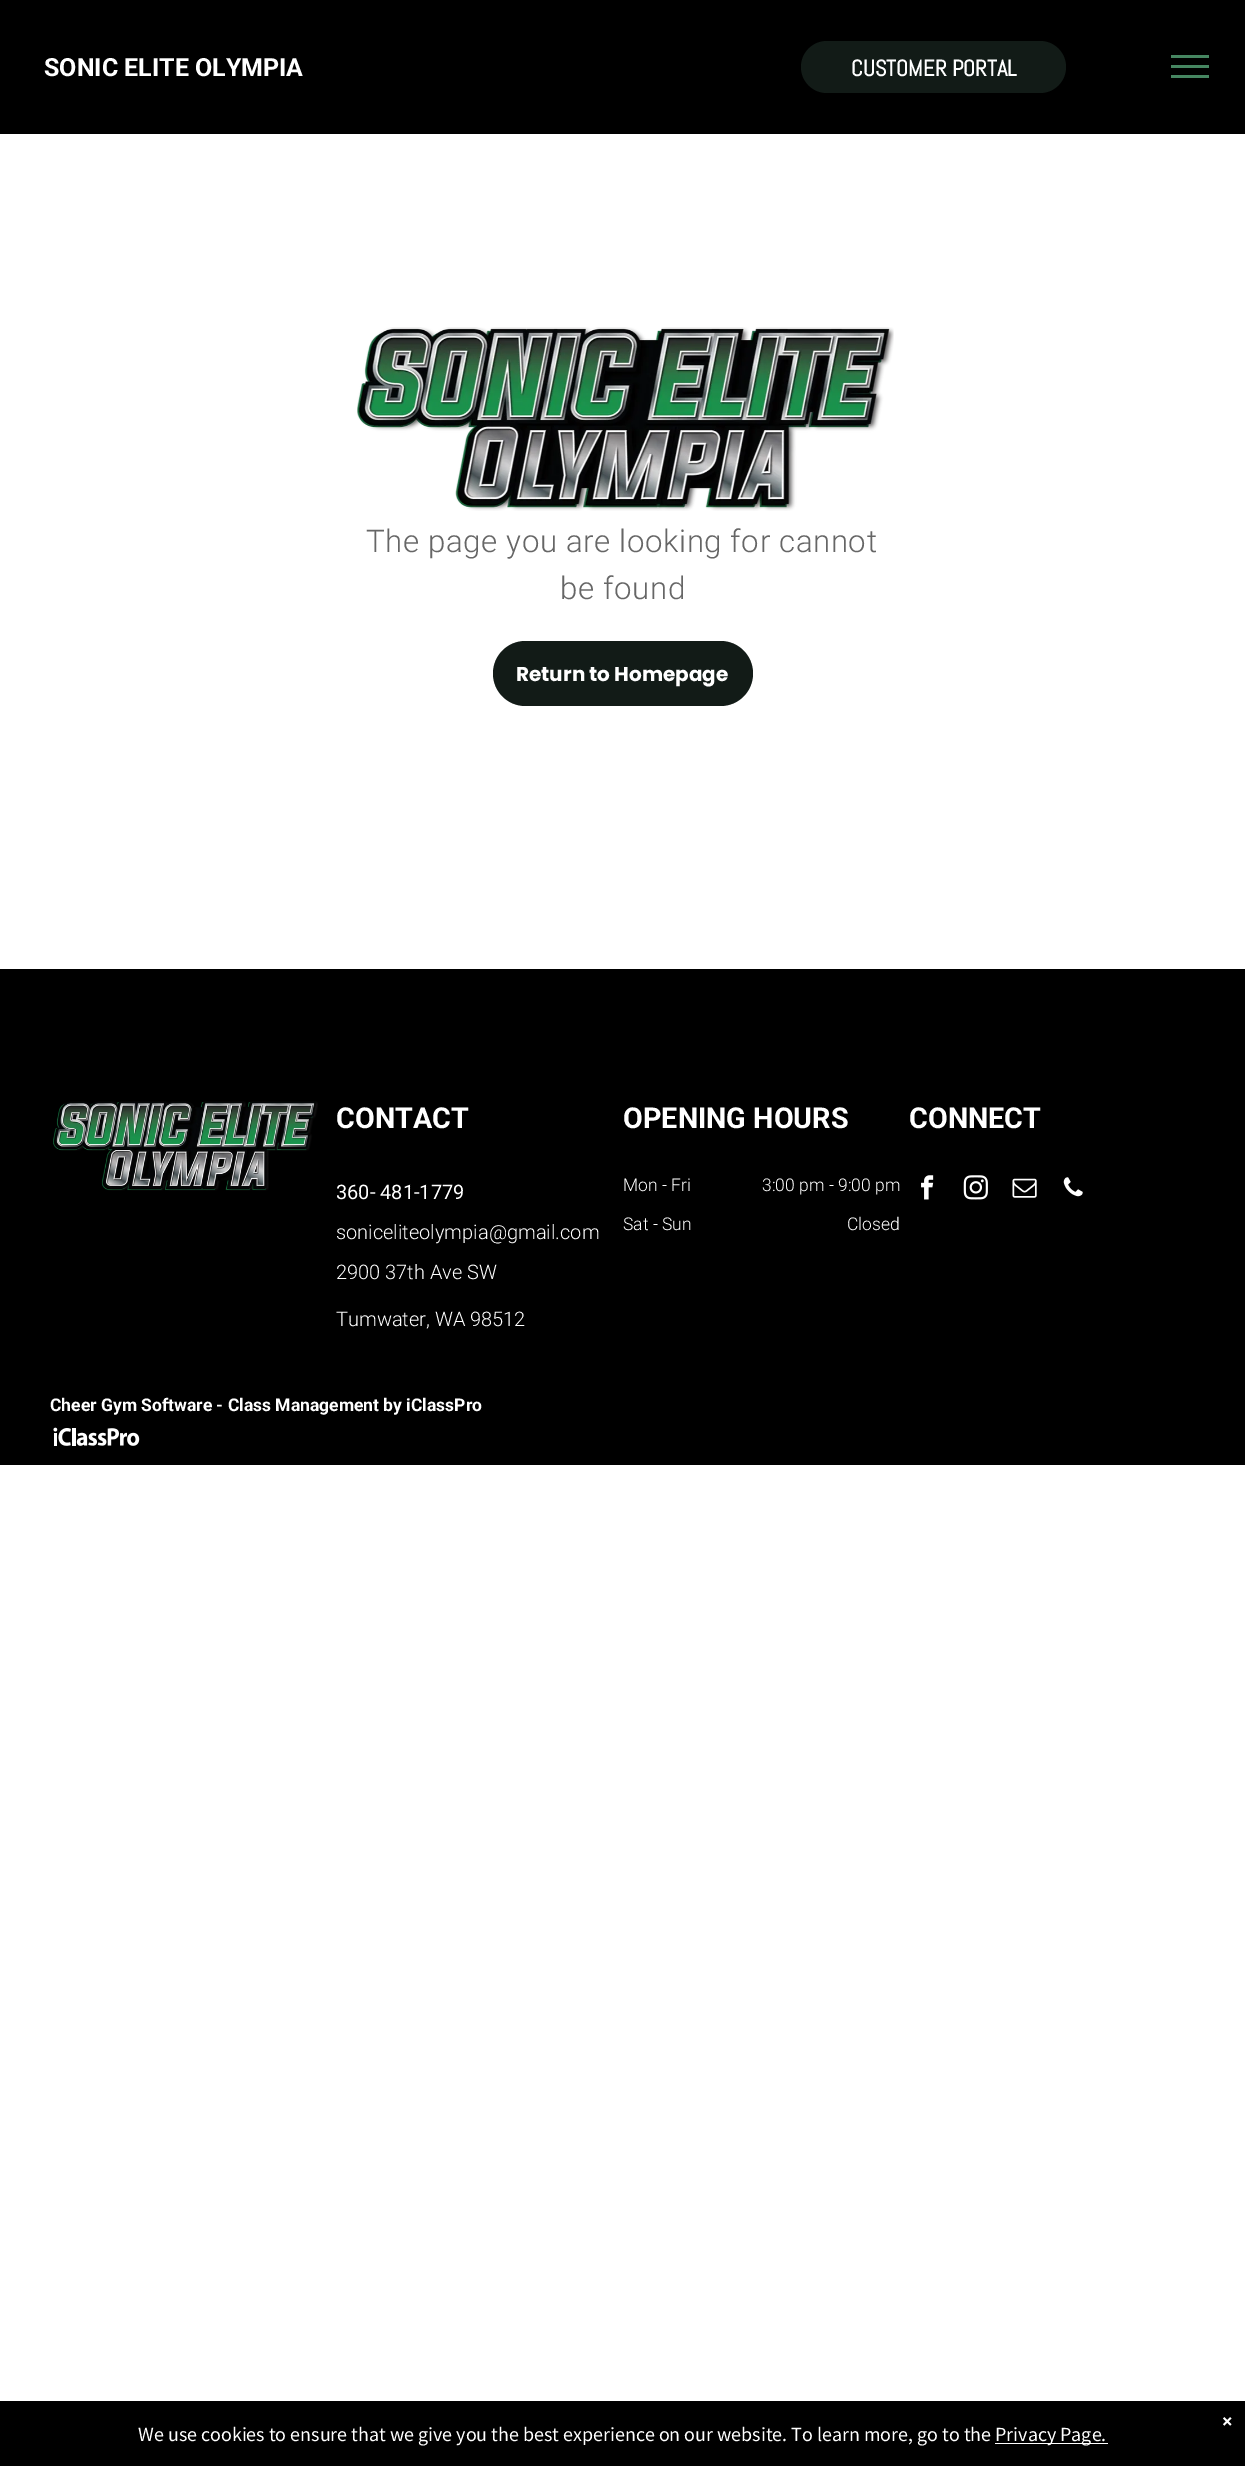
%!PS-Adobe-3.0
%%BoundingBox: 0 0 1245 2466
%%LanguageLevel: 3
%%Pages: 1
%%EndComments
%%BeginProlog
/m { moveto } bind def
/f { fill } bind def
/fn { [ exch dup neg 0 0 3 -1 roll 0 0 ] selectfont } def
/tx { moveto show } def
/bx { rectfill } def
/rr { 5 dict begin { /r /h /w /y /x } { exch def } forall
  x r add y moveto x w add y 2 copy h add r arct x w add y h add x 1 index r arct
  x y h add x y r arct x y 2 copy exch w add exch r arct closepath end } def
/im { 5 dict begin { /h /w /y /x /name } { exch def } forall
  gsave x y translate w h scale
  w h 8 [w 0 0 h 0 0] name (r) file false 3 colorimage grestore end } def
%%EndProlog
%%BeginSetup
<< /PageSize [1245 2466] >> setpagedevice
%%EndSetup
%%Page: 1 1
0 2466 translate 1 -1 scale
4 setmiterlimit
1 setgray
0 0 1245 2466 bx
0 setgray
0 0 1245 134 bx
/Roboto-Bold 25 fn
1 setgray
(SONIC ELITE OLYMPIA) 44 76 tx
0.071 0.106 0.09 setrgbcolor
801 41 265 52 26 rr f
/Abel-Bold 22.5 fn
1 setgray
(CUSTOMER PORTAL) 851 76 tx
0.275 0.525 0.38 setrgbcolor
1171 55 38 3 bx
1171 65 38 3 bx
1171 75 38 3 bx
(image0.raw) 357 327 537 184 im
/Roboto-Light 31.25 fn
0.4 setgray
366 552 m 0.6 0 (The page you are looking for cannot) ashow
560 599 m 0.6 0 (be found) ashow
0.071 0.106 0.09 setrgbcolor
493 641 260 65 32.5 rr f
/Poppins-Bold 20 fn
1 setgray
(Return to Homepage) 516 681 tx
0 setgray
0 969 1245 496 bx
(image1.raw) 53 1101 265 90 im
/Roboto-Bold 28.75 fn
1 setgray
(CONTACT) 336 1128 tx
/Roboto-Regular 20 fn
(360- 481-1779) 336 1199 tx
/Roboto-Light 20 fn
(soniceliteolympia@gmail.com) 336 1239 tx
(2900 37th Ave SW) 336 1279 tx
(Tumwater, WA 98512) 336 1326 tx
/Roboto-Bold 28.75 fn
(OPENING HOURS) 623 1128 tx
/Roboto-Light 17.5 fn
(Mon - Fri) 623 1191 tx
(3:00 pm - 9:00 pm) 762 1191 tx
(Sat - Sun) 623 1230 tx
(Closed) 847 1230 tx
/Roboto-Bold 28.75 fn
(CONNECT) 909 1128 tx
(image2.raw) 921 1175 13 25 im
(image3.raw) 963 1175 25 25 im
(image4.raw) 1012 1178 25 20 im
(image5.raw) 1063 1177 20 20 im
/Roboto-Bold 17.5 fn
(Cheer Gym Software - Class Management by iClassPro) 50 1411 tx
(image6.raw) 53 1427 87 19 im
0 setgray
0 2401 1245 65 bx
/SourceSansPro-Bold 20 fn
1 setgray
(×) 1222 2428 tx
/SourceSansPro-Regular 20 fn
(We use cookies to ensure that we give you the best experience on our website. To learn more, go to the) 138 2441 tx
995 2443 113 1 bx
(Privacy Page.) 995 2441 tx
showpage
%%EOF
